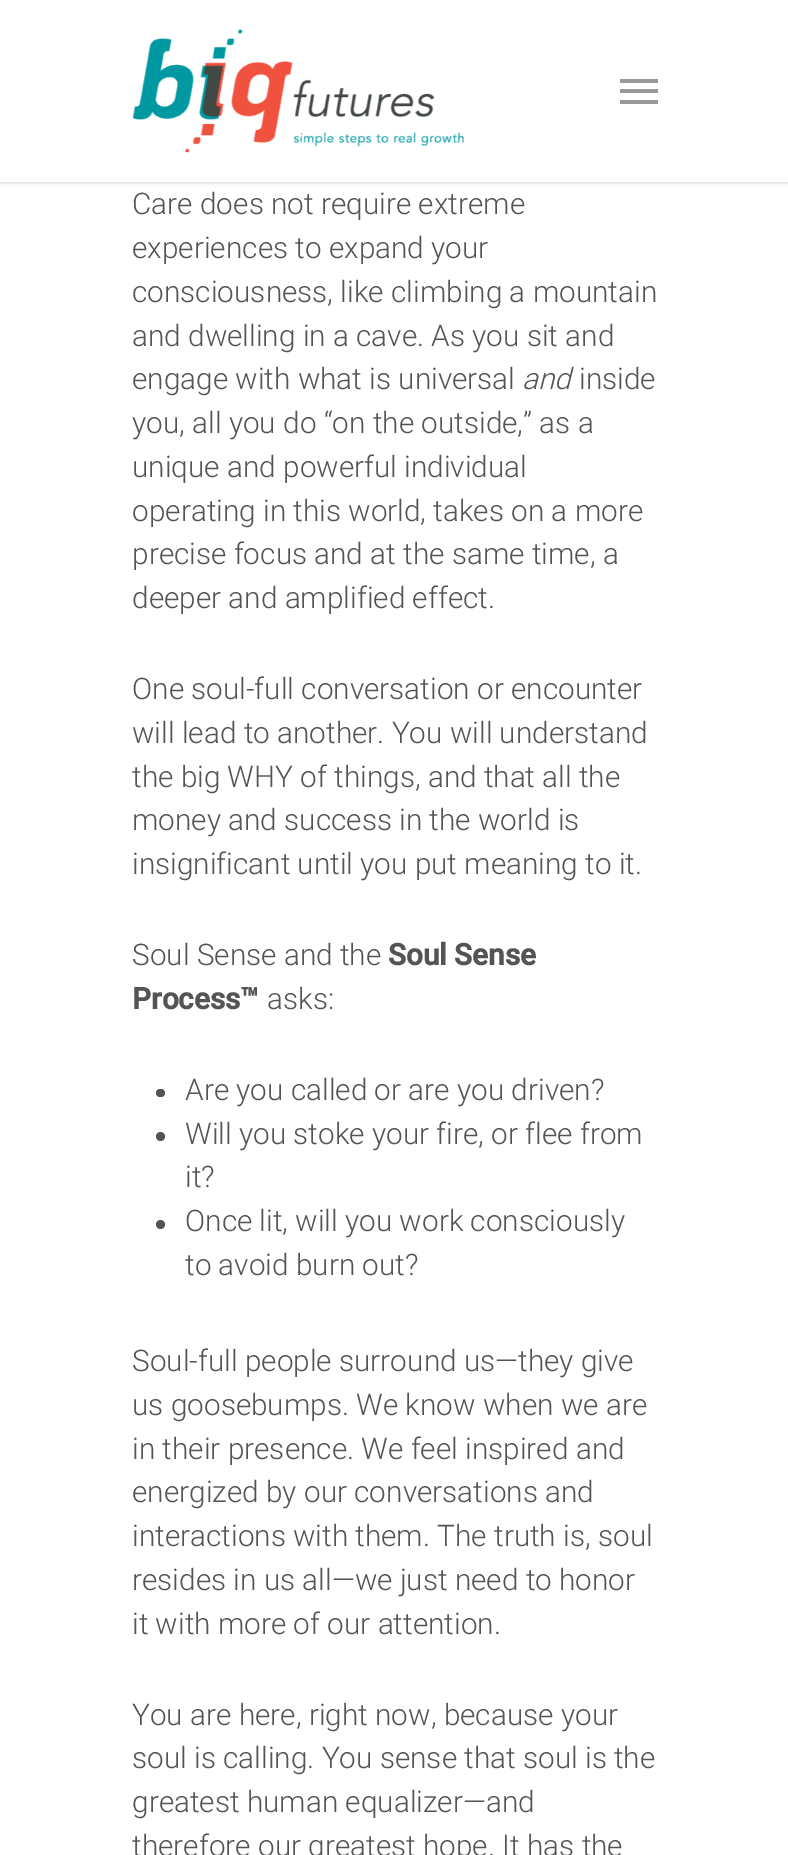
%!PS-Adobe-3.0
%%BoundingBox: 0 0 788 1855
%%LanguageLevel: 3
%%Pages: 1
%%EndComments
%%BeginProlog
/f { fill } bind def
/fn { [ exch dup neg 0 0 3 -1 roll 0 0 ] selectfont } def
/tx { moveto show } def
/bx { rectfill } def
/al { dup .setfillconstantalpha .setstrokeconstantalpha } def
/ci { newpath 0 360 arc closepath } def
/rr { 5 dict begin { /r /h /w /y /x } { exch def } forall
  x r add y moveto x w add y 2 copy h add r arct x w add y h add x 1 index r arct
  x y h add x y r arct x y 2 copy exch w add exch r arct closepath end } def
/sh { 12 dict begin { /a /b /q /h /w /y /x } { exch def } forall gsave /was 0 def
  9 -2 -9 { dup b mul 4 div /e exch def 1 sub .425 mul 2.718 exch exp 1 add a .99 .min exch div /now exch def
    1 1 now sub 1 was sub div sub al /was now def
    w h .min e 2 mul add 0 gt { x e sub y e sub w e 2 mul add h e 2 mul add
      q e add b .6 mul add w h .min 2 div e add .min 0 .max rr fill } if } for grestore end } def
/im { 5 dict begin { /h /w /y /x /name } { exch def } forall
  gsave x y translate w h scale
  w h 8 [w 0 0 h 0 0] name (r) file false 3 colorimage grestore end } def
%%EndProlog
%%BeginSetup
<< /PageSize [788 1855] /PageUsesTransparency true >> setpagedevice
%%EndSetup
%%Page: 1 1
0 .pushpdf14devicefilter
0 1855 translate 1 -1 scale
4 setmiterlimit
1 setgray
0 0 788 1855 bx
0 setgray
0 0 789 182 0 2.5 0.22 sh
1 setgray
0 0 788 182 bx
(image0.raw) 132 29 332 124 im
0.6 setgray
620 79 38 4 bx
620 100 38 4 bx
620 89 38 4 bx
/Roboto-Light 29.75 fn
0.329 setgray
(Care does not require extreme) 132 214 tx
(experiences to expand your) 132 258 tx
(consciousness, like climbing a mountain) 132 302 tx
(and dwelling in a cave. As you sit and) 132 346 tx
(engage with what is universal) 132 389 tx
/Roboto-LightItalic 29.75 fn
(and) 522 389 tx
/Roboto-Light 29.75 fn
(inside) 579 389 tx
(you, all you do “on the outside,” as a) 132 433 tx
(unique and powerful individual) 132 477 tx
(operating in this world, takes on a more) 132 521 tx
(precise focus and at the same time, a) 132 564 tx
(deeper and amplified effect.) 132 608 tx
(One soul-full conversation or encounter) 132 699 tx
(will lead to another. You will understand) 132 743 tx
(the big WHY of things, and that all the) 132 787 tx
(money and success in the world is) 132 830 tx
(insignificant until you put meaning to it.) 132 874 tx
(Soul Sense and the) 132 965 tx
/Roboto-Bold 29.75 fn
(Soul Sense) 388 965 tx
(Process™) 132 1009 tx
/Roboto-Light 29.75 fn
(asks:) 267 1009 tx
156 1089 9 8 4 rr f
(Are you called or are you driven?) 185 1100 tx
160.5 1136.5 4.5 ci f
(Will you stoke your fire, or flee from) 185 1144 tx
(it?) 185 1187 tx
160.5 1224.5 4.5 ci f
(Once lit, will you work consciously) 185 1231 tx
(to avoid burn out?) 185 1275 tx
(Soul-full people surround us—they give) 132 1371 tx
(us goosebumps. We know when we are) 132 1415 tx
(in their presence. We feel inspired and) 132 1459 tx
(energized by our conversations and) 132 1502 tx
(interactions with them. The truth is, soul) 132 1546 tx
(resides in us all—we just need to honor) 132 1590 tx
(it with more of our attention.) 132 1634 tx
(You are here, right now, because your) 132 1725 tx
(soul is calling. You sense that soul is the) 132 1768 tx
(greatest human equalizer—and) 132 1812 tx
(therefore our greatest hope. It has the) 132 1856 tx
.poppdf14devicefilter showpage
%%EOF
